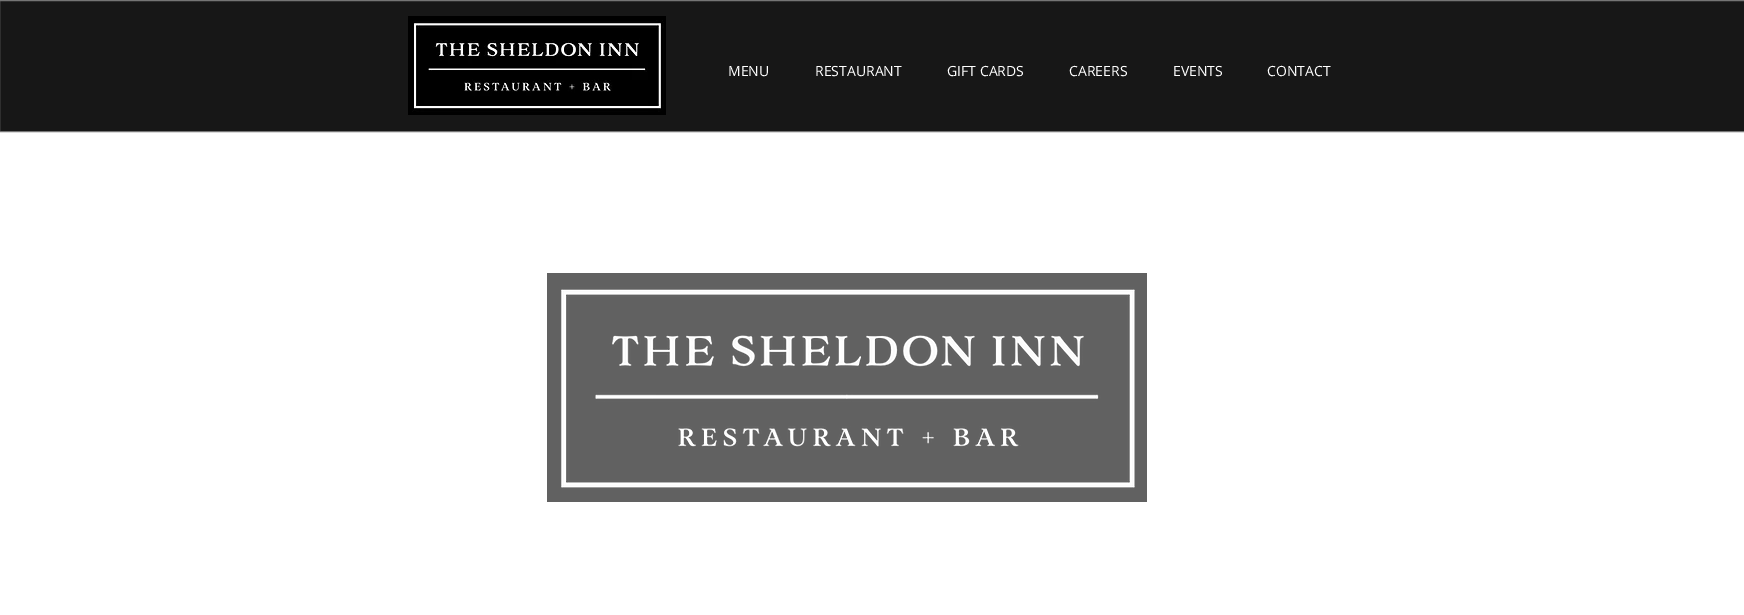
%!PS-Adobe-3.0
%%BoundingBox: 0 0 1744 615
%%LanguageLevel: 3
%%Pages: 1
%%EndComments
%%BeginProlog
/m { moveto } bind def
/l { lineto } bind def
/h { closepath } bind def
/f { fill } bind def
/S { stroke } bind def
/q { gsave } bind def
/Q { grestore } bind def
/fn { [ exch dup neg 0 0 3 -1 roll 0 0 ] selectfont } def
/tx { moveto show } def
/bx { rectfill } def
/im { 5 dict begin { /h /w /y /x /name } { exch def } forall
  gsave x y translate w h scale
  w h 8 [w 0 0 h 0 0] name (r) file false 3 colorimage grestore end } def
%%EndProlog
%%BeginSetup
<< /PageSize [1744 615] >> setpagedevice
%%EndSetup
%%Page: 1 1
0 615 translate 1 -1 scale
4 setmiterlimit
1 setgray
0 0 1744 615 bx
0.09 setgray
-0.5 0.5 m 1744.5 0.5 l 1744.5 131.5 l -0.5 131.5 l h q f Q
0.459 setgray
S
(image0.raw) 408 16 258 99 im
/OpenSans-Regular 14 fn
1 setgray
(MENU) 728 76 tx
(RESTAURANT) 815 76 tx
(GIFT CARDS) 947 76 tx
(CAREERS) 1069 76 tx
(EVENTS) 1173 76 tx
(CONTACT) 1267 76 tx
(image1.raw) 547 273 600 229 im
showpage
%%EOF
